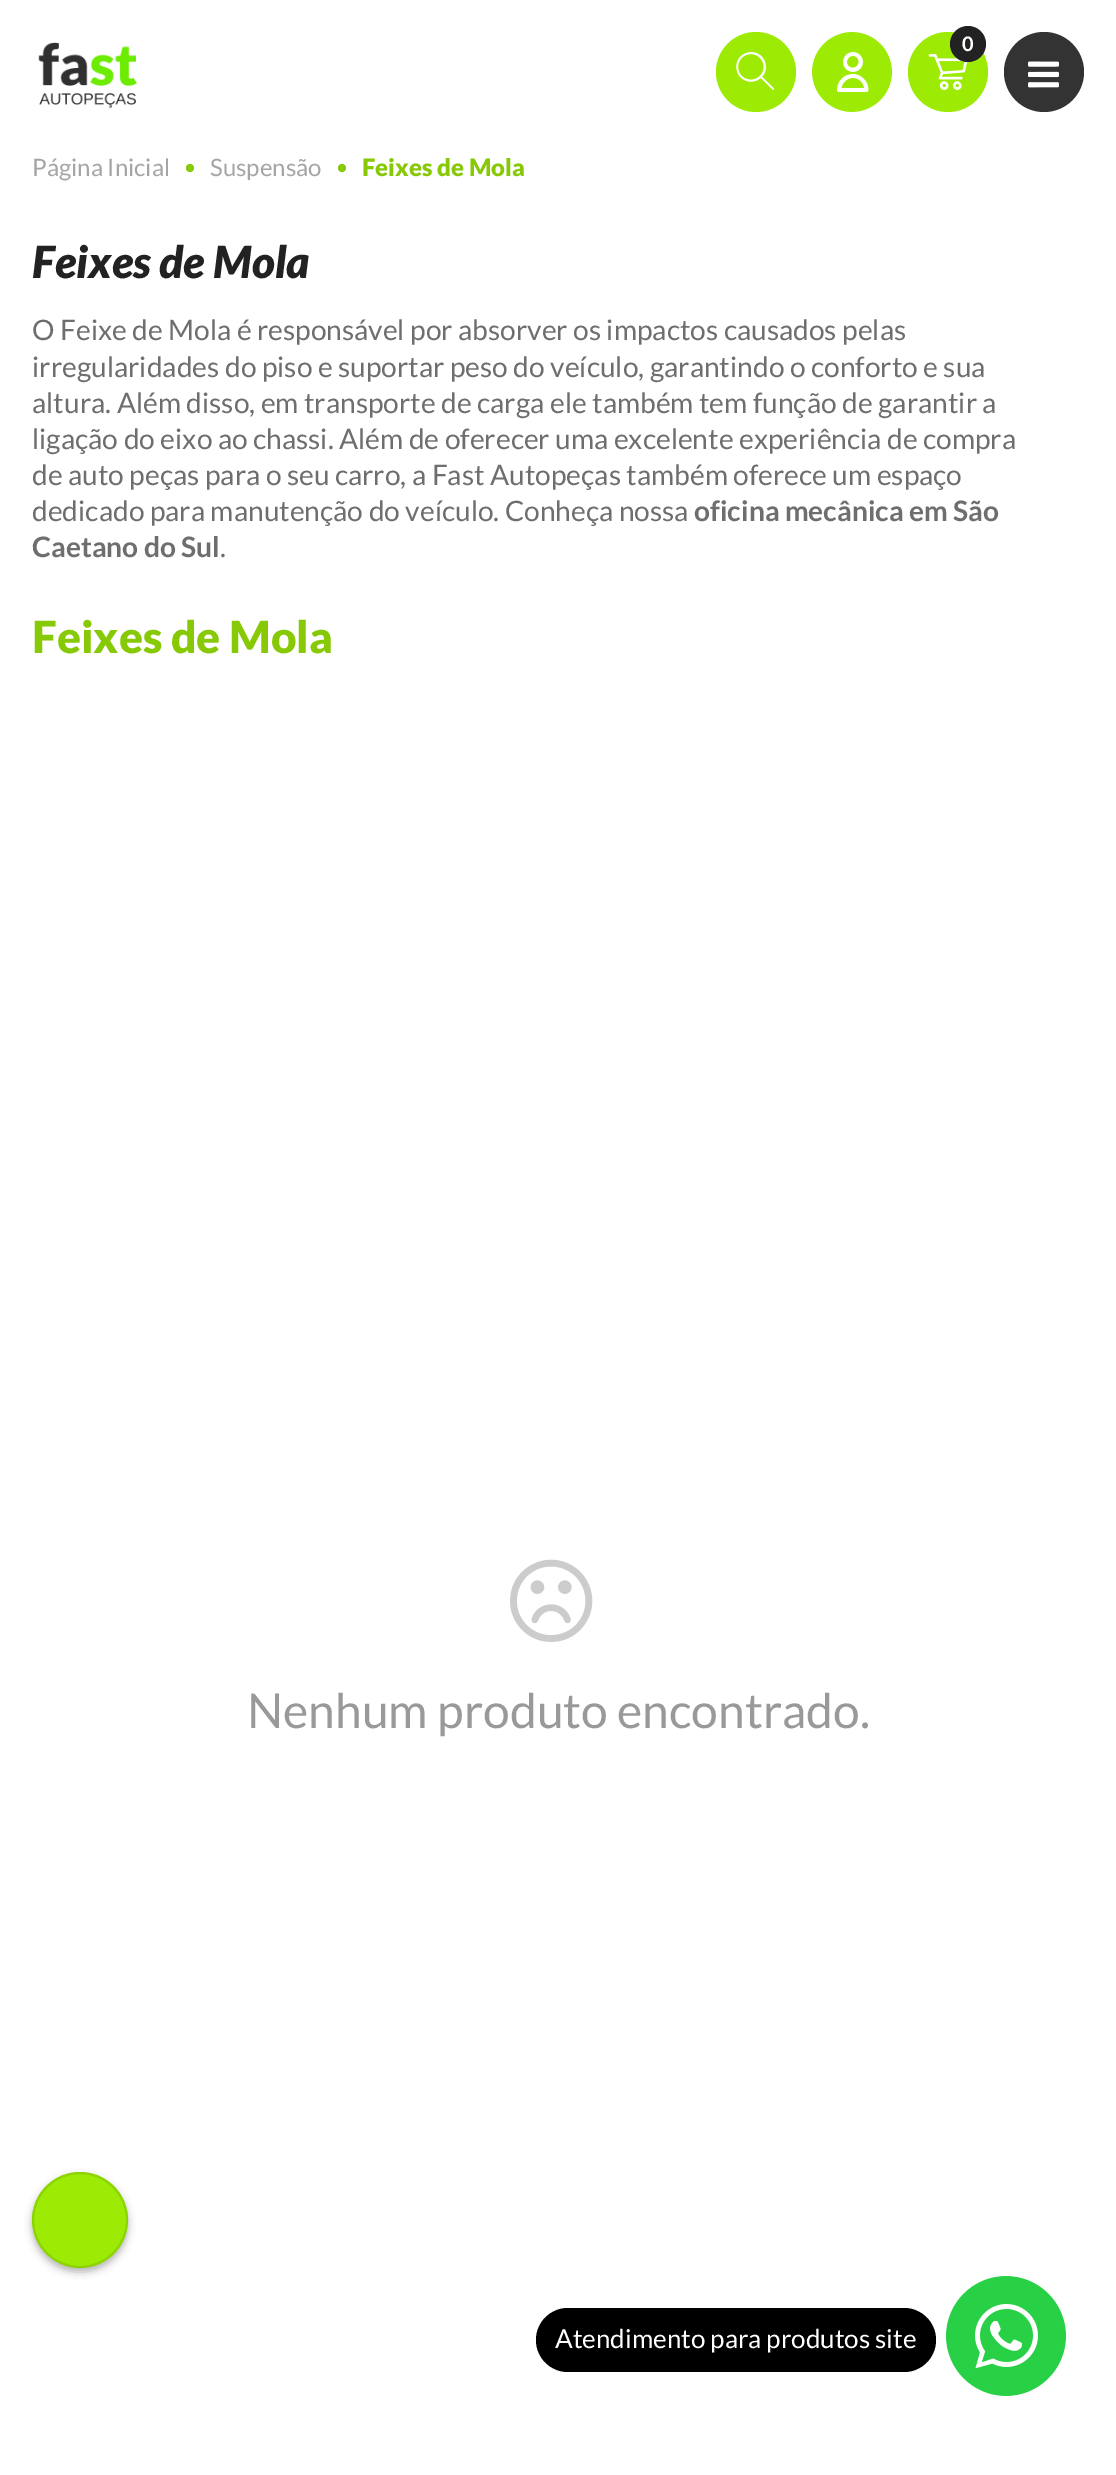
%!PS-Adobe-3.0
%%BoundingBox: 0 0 1116 2475
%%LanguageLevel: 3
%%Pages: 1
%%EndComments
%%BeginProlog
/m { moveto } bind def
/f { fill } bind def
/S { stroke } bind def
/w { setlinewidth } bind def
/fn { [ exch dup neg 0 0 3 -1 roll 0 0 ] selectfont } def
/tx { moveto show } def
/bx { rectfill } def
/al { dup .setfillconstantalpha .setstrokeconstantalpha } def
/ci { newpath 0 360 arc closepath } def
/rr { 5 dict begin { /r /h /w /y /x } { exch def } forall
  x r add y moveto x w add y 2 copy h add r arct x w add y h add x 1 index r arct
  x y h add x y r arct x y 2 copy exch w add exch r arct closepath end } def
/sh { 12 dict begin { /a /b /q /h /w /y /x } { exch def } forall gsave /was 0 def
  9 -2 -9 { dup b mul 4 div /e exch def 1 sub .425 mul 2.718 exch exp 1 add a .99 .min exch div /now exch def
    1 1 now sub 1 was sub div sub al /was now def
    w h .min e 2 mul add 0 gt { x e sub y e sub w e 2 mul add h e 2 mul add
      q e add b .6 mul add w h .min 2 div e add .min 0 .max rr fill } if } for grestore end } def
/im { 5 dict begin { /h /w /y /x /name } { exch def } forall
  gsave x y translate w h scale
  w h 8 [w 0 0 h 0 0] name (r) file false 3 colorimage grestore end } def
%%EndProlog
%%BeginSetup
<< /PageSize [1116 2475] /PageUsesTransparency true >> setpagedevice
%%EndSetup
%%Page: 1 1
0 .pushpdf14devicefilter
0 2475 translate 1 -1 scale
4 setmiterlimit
1 setgray
0 0 1116 2475 bx
(image0.raw) 38 42 99 67 im
0.616 0.922 0.02 setrgbcolor
756 72 40 ci f
(image1.raw) 736 52 38 38 im
(image2.raw) 812 32 80 80 im
948 72 40 ci f
(image3.raw) 928 54 40 36 im
0.133 setgray
968 44 18 ci f
/Lato-Bold 20 fn
1 setgray
962 51 m -2 0 (0) ashow
0.2 setgray
1044 72 40 ci f
(image4.raw) 1028 61 31 27 im
/Lato-Regular 24 fn
0.647 setgray
(Página Inicial) 32 176 tx
0.529 0.788 0.024 setrgbcolor
190 168 4 ci f
0.647 setgray
(Suspensão) 210 176 tx
0.529 0.788 0.024 setrgbcolor
342 168 4 ci f
/Lato-Black 24 fn
(Feixes de Mola) 362 176 tx
/Lato-BlackItalic 44.25 fn
0.133 setgray
(Feixes de Mola) 32 278 tx
/Lato-Regular 28.15 fn
0.431 setgray
(O Feixe de Mola é responsável por absorver os impactos causados pelas) 32 340 tx
(irregularidades do piso e suportar peso do veículo, garantindo o conforto e sua) 32 377 tx
(altura. Além disso, em transporte de carga ele também tem função de garantir a) 32 413 tx
(ligação do eixo ao chassi. Além de oferecer uma excelente experiência de compra) 32 449 tx
(de auto peças para o seu carro, a Fast Autopeças também oferece um espaço) 32 485 tx
(dedicado para manutenção do veículo. Conheça nossa) 32 521 tx
/Lato-Bold 28.15 fn
(oficina mecânica em São) 694 521 tx
(Caetano do Sul) 32 557 tx
/Lato-Regular 28.15 fn
(.) 220 557 tx
0 setgray
32 2176 96 96 48 4 0.3 sh
0.616 0.922 0.02 setrgbcolor
80 2220 48 ci f
0.1 al
0 setgray
2 w
80 2220 47 ci S
/Lato-Black 44.25 fn
1 al
0.529 0.788 0.024 setrgbcolor
(Feixes de Mola) 32 653 tx
(image5.raw) 510 1559 83 83 im
/Lato-Regular 48 fn
0.6 setgray
(Nenhum produto encontrado.) 247 1728 tx
0 setgray
536 2308 400 64 32 rr f
/Lato-Regular 26 fn
1 setgray
(Atendimento para produtos site) 555 2348 tx
(image6.raw) 946 2276 120 120 im
.poppdf14devicefilter showpage
%%EOF
